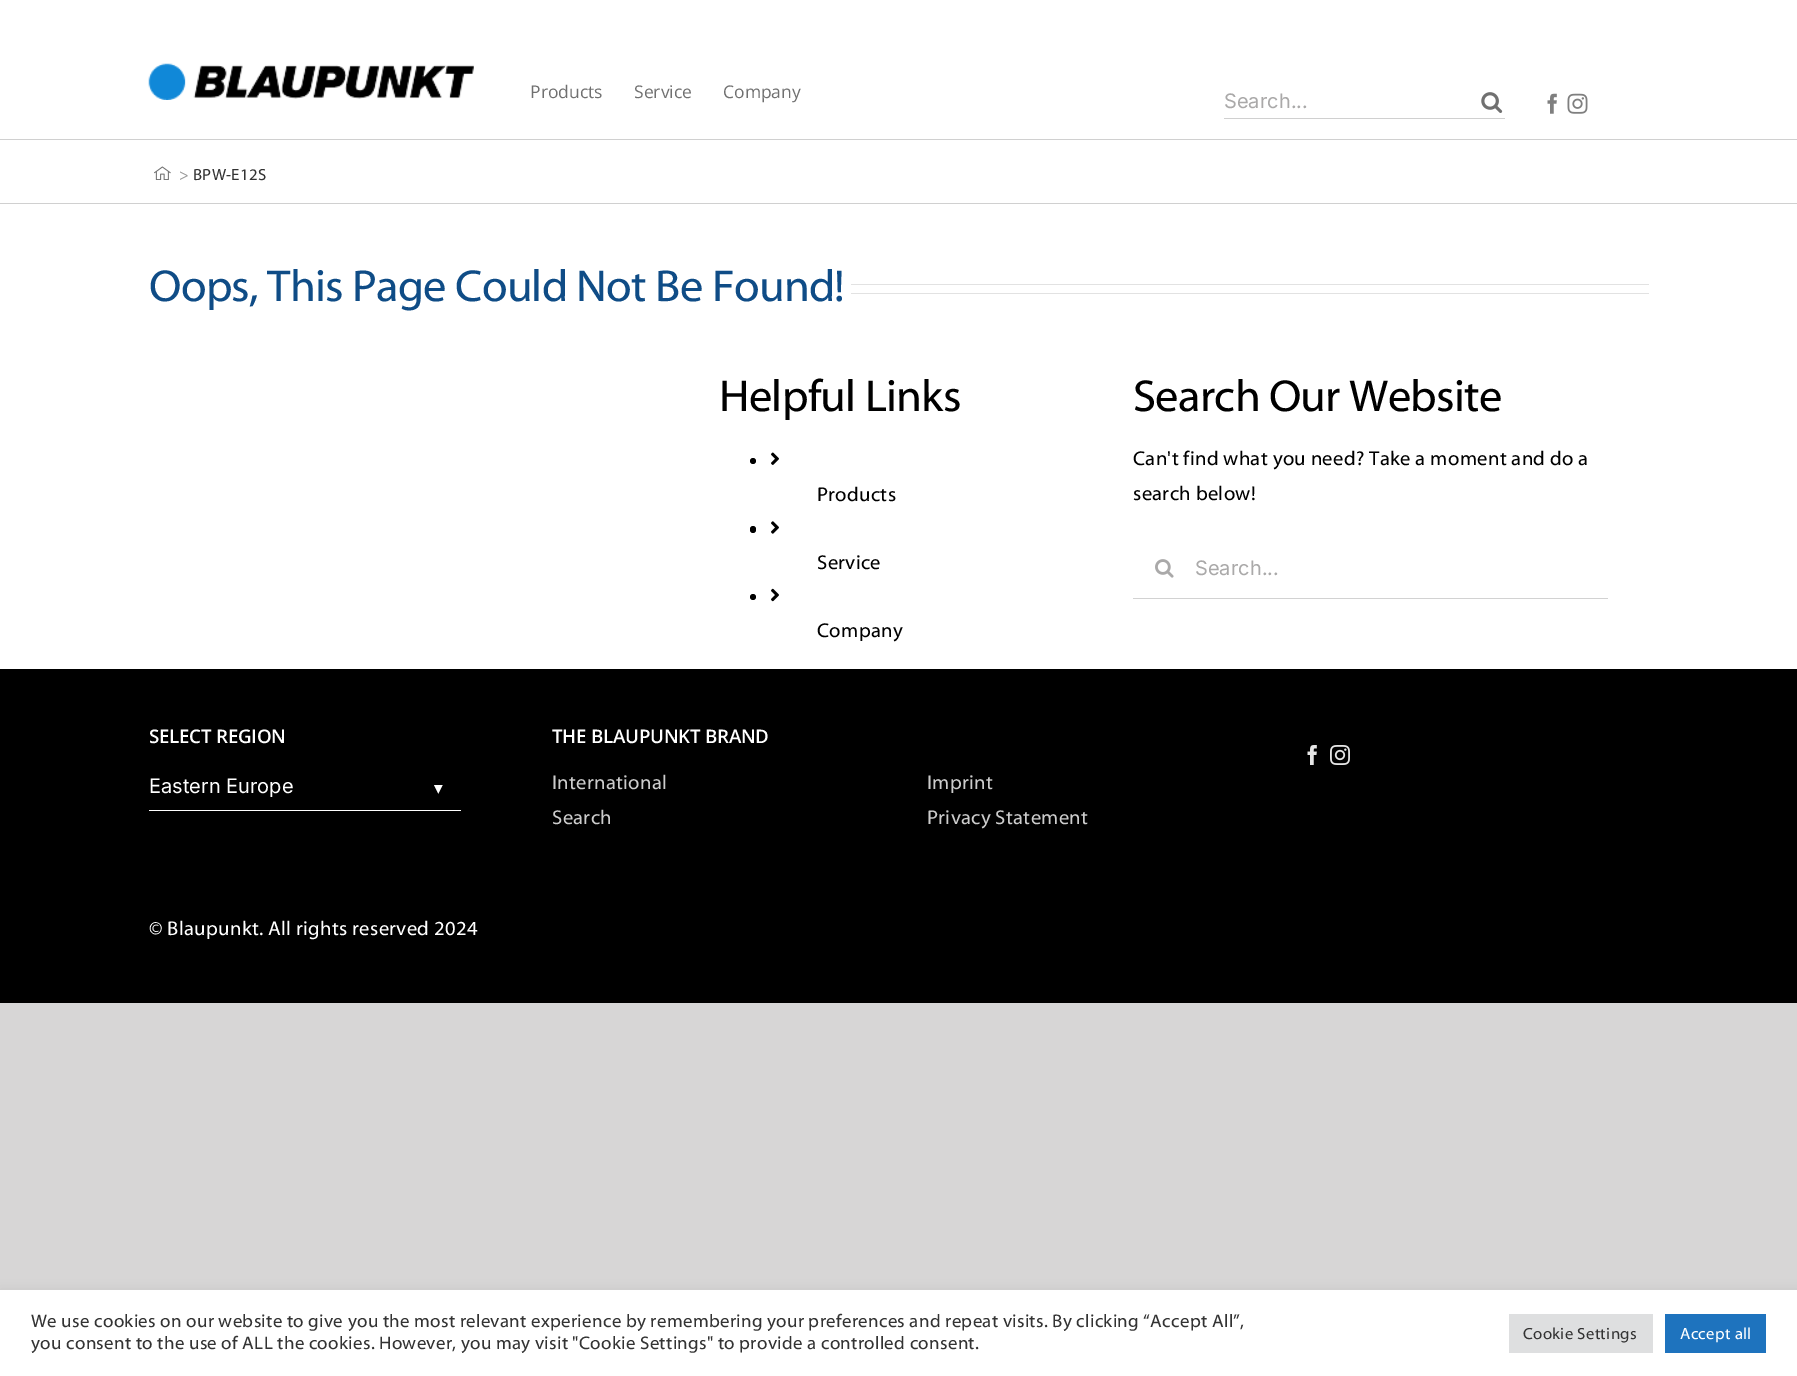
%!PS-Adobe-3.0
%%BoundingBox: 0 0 1797 1376
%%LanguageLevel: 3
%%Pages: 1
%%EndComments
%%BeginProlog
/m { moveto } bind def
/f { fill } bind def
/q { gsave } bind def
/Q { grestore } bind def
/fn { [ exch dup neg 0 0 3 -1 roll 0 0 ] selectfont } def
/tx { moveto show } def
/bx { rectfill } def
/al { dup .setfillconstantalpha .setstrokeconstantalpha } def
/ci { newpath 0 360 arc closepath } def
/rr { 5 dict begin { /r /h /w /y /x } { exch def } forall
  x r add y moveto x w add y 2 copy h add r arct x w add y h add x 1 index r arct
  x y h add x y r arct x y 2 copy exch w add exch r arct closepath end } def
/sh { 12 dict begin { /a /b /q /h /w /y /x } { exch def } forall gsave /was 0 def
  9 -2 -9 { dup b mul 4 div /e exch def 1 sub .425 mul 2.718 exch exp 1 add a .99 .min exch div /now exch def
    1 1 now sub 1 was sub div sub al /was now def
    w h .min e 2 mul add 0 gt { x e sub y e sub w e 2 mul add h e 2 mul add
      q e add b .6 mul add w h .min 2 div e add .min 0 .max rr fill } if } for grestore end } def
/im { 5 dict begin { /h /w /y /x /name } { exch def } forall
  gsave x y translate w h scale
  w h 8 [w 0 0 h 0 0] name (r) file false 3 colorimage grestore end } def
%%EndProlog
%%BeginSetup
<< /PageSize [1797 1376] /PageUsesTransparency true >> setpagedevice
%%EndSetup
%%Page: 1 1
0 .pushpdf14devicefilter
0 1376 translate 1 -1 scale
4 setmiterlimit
0.843 0.839 0.839 setrgbcolor
0 0 1797 1376 bx
1 setgray
0 0 1797 669 bx
(image0.raw) 148 63 326 37 im
/OpenSans-Regular 17.5 fn
0.439 setgray
(Products) 530 98 tx
(Service) 634 98 tx
(Company) 723 98 tx
/Inter-Regular 20 fn
0.667 0.663 0.663 setrgbcolor
(Search...) 1224 108 tx
0.816 setgray
1224 118 281 1 bx
(image1.raw) 1481 92 22 21 im
(image2.raw) 1547 93 10 21 im
(image3.raw) 1567 93 21 21 im
0 139 1797 1 bx
0 203 1797 1 bx
(image4.raw) 154 166 17 14 im
/Myriad-Regular 16.25 fn
0.588 setgray
179 180 m 0.3 0 (>) ashow
0.2 setgray
193 180 m 0.3 0 (BPW-E12S) ashow
/Myriad-Regular 45 fn
0.059 0.298 0.525 setrgbcolor
149 301 m -0.7 0 (Oops, This Page Could Not Be Found!) ashow
0.886 setgray
851 284 798 1 bx
851 293 798 1 bx
0 setgray
719 411 m -0.7 0 (Helpful Links) ashow
753 461 3 ci f
(image5.raw) 771 452 8 13 im
/Myriad-Regular 20 fn
817 501 m 0.3 0 (Products) ashow
750 526 6 7 3 rr f
(image6.raw) 771 521 8 13 im
817 569 m 0.3 0 (Service) ashow
753 597 3 ci f
(image7.raw) 771 588 8 14 im
817 637 m 0.3 0 (Company) ashow
/Myriad-Regular 45 fn
1133 411 m -0.7 0 (Search Our Website) ashow
/Myriad-Regular 20 fn
1133 465 m 0.3 0 (Can't find what you need? Take a moment and do a) ashow
1133 500 m 0.3 0 (search below!) ashow
(image8.raw) 1155 559 19 19 im
0.824 setgray
1133 598 475 1 bx
/Inter-Regular 20 fn
0.667 0.663 0.663 setrgbcolor
(Search...) 1195 575 tx
0 setgray
0 669 1797 334 bx
/OpenSans-SemiBold 18.75 fn
1 setgray
149 743 m -0.25 0 (SELECT REGION) ashow
149 810 312 1 bx
/Inter-Regular 20 fn
(Eastern Europe) 149 793 tx
/LiberationSans-Regular 15 fn
q 434 782 translate 90 rotate 0 0 m 0.3 0 (►) ashow Q
/OpenSans-SemiBold 18.75 fn
552 743 m -0.25 0 (THE BLAUPUNKT BRAND) ashow
/Myriad-Regular 20 fn
0.8 setgray
552 789 m 0.3 0 (International) ashow
552 824 m 0.3 0 (Search) ashow
(image9.raw) 1307 745 10 20 im
(image10.raw) 1330 745 20 20 im
927 789 m 0.3 0 (Imprint) ashow
927 824 m 0.3 0 (Privacy Statement) ashow
1 setgray
149 935 m 0.3 0 (© Blaupunkt. All rights reserved 2024) ashow
0.675 0.671 0.671 setrgbcolor
0 1289 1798 86 0 6 0.3 sh
1 setgray
0 1290 1797 86 bx
/Myriad-Regular 18.33 fn
0.2 setgray
31 1327 m 0.3 0 (We use cookies on our website to give you the most relevant experience by remembering your preferences and repeat visits. By clicking “Accept All”,) ashow
31 1349 m 0.3 0 (you consent to the use of ALL the cookies. However, you may visit "Cookie Settings" to provide a controlled consent.) ashow
0.871 0.875 0.878 setrgbcolor
1509 1314 144 39 bx
/Myriad-Regular 16.25 fn
0.2 setgray
1523 1339 m 0.3 0 (Cookie Settings) ashow
0.118 0.451 0.745 setrgbcolor
1665 1314 101 39 bx
1 setgray
1680 1339 m 0.3 0 (Accept all) ashow
.poppdf14devicefilter showpage
%%EOF
